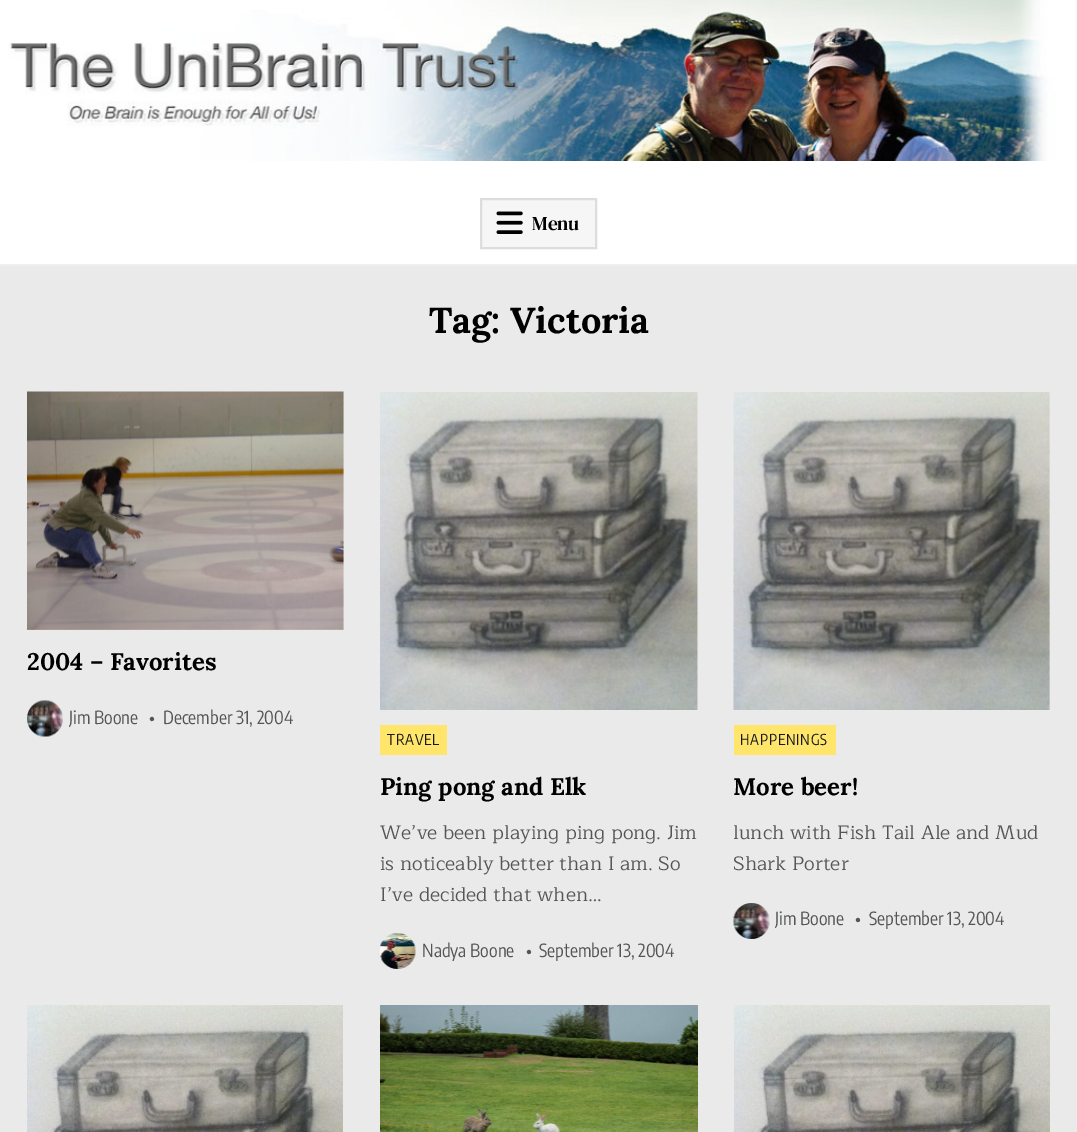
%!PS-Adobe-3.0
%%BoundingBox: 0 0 1077 1132
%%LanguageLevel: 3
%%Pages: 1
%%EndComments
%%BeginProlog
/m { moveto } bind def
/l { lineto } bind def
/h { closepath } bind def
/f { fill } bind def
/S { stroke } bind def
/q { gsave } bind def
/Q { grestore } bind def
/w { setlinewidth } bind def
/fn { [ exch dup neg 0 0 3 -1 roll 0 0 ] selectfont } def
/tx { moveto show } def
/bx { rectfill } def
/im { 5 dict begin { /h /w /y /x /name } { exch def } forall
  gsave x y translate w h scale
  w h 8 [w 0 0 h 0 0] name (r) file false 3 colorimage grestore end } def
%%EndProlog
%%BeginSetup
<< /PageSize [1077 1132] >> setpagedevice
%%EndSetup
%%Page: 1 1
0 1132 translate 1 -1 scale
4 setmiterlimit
0.918 setgray
0 0 1077 1132 bx
(image0.raw) 0 0 1077 161 im
1 setgray
0 161 1077 103 bx
0.937 setgray
0 264 1077 2 bx
0.965 setgray
481 199 m 596 199 l 596 248 l 481 248 l h q f Q
0.867 setgray
2 w
S
(image1.raw) 496 211 27 23 im
/DMSerifText-Regular 19.5 fn
0 setgray
(Menu) 532 230 tx
/Lora-Bold 36 fn
(Tag: Victoria) 429 333 tx
(image2.raw) 27 391 317 239 im
/Lora-Bold 24 fn
(2004 – Favorites) 27 670 tx
(image3.raw) 27 700 36 37 im
/EncodeSansCondensed-Regular 18 fn
0.333 setgray
(Jim Boone) 69 724 tx
(•) 149 724 tx
(December 31, 2004) 163 724 tx
(image4.raw) 380 392 318 318 im
1 0.902 0.416 setrgbcolor
380 725 67 30 bx
/EncodeSansCondensed-Regular 15 fn
0.09 0.094 0.118 setrgbcolor
387 745 m 0.75 0 (TRAVEL) ashow
/Lora-Bold 24 fn
0 setgray
(Ping pong and Elk) 380 795 tx
/Maitree-Regular 19.5 fn
0.333 setgray
(We’ve been playing ping pong. Jim) 380 839 tx
(is noticeably better than I am. So) 380 870 tx
(I’ve decided that when…) 380 901 tx
(image5.raw) 380 933 36 36 im
/EncodeSansCondensed-Regular 18 fn
(Nadya Boone) 422 957 tx
(•) 526 957 tx
(September 13, 2004) 539 957 tx
(image6.raw) 733 392 317 318 im
1 0.902 0.416 setrgbcolor
734 725 102 30 bx
/EncodeSansCondensed-Regular 15 fn
0.09 0.094 0.118 setrgbcolor
740 745 m 0.75 0 (HAPPENINGS) ashow
/Lora-Bold 24 fn
0 setgray
(More beer!) 733 795 tx
/Maitree-Regular 19.5 fn
0.333 setgray
(lunch with Fish Tail Ale and Mud) 733 839 tx
q
734 392 316 547 rectclip
(Shark Porter) 733 870 tx
Q
(image7.raw) 733 903 37 36 im
/EncodeSansCondensed-Regular 18 fn
(Jim Boone) 775 925 tx
(•) 855 925 tx
(September 13, 2004) 869 925 tx
(image8.raw) 27 1005 316 127 im
(image9.raw) 380 1005 318 127 im
(image10.raw) 734 1005 316 127 im
showpage
%%EOF
